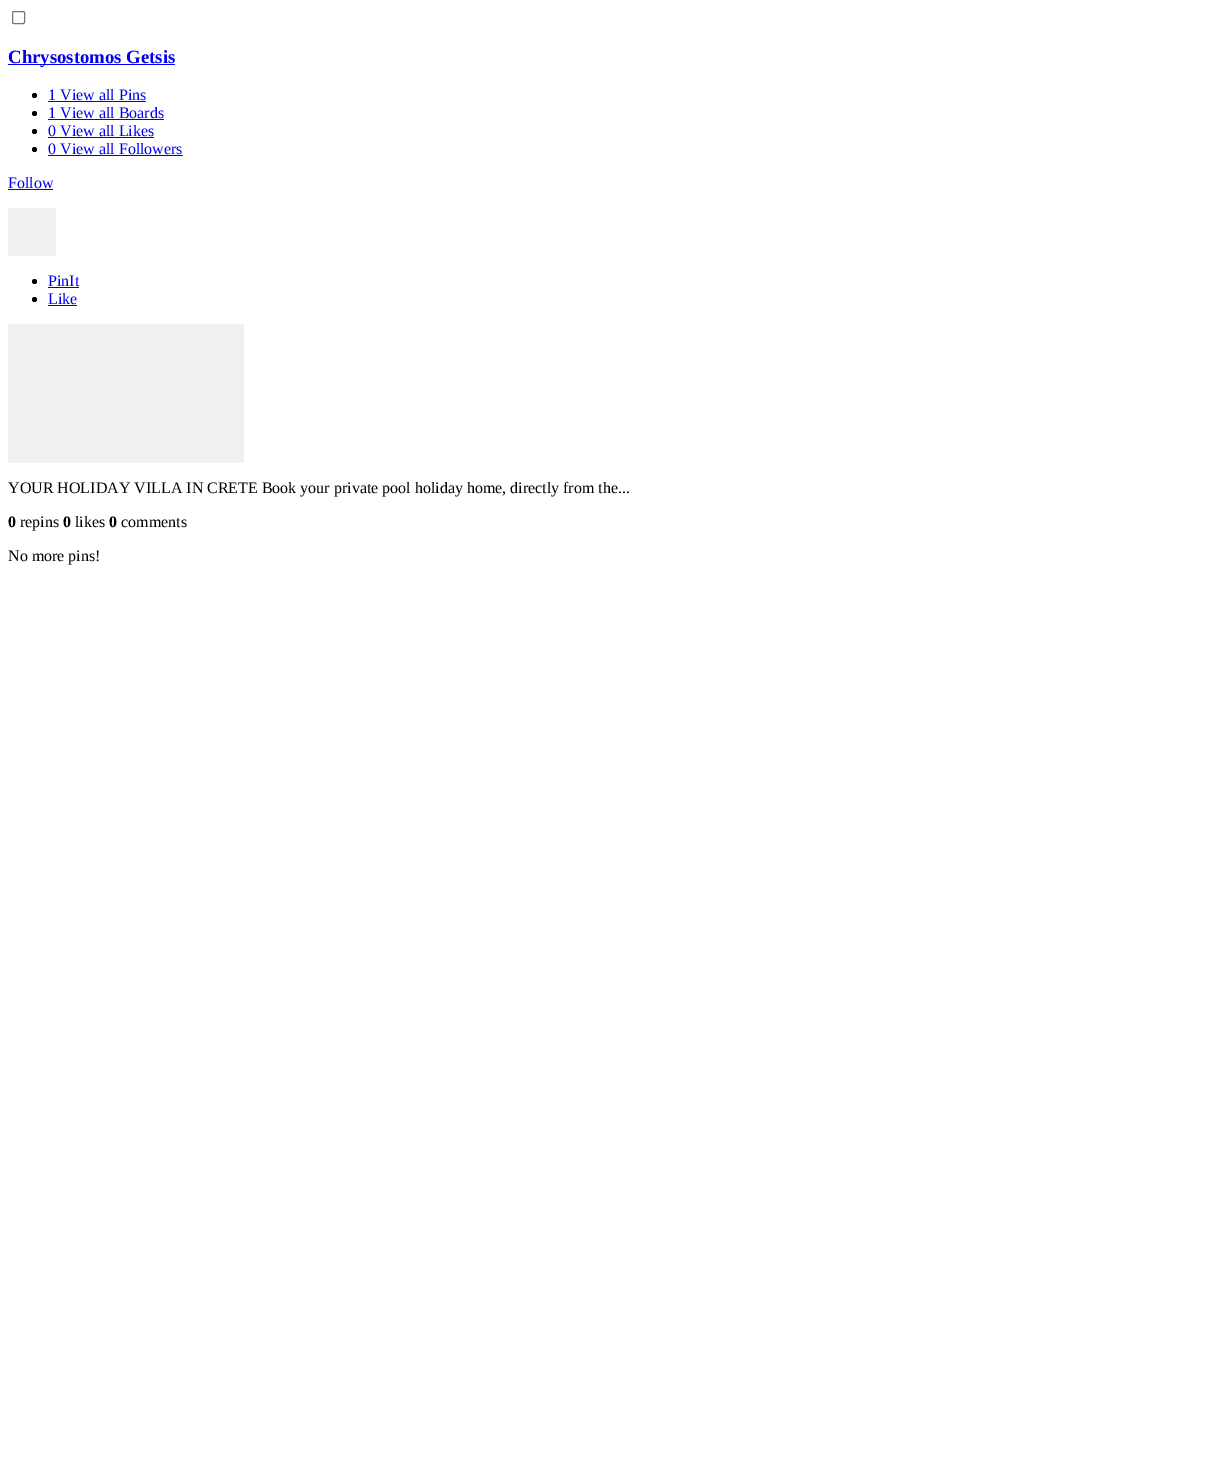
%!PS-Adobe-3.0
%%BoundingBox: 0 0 1221 1459
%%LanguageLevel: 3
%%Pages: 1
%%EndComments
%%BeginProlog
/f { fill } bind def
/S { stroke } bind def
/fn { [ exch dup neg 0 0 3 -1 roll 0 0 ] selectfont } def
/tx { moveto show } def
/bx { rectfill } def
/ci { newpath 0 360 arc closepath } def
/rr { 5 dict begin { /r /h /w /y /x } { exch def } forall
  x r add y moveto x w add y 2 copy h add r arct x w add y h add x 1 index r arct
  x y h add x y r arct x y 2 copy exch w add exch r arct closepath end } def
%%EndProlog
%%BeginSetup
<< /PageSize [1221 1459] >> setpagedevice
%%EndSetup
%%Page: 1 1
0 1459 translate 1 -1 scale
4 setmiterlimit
1 setgray
0 0 1221 1459 bx
0.463 setgray
12.5 11.5 12 12 1.5 rr S
0 0 0.933 setrgbcolor
8 64 167 1 bx
/LiberationSerif-Bold 18.75 fn
(Chrysostomos Getsis) 8 63 tx
0 setgray
34.5 95.5 2.5 ci f
/LiberationSerif-Regular 16 fn
0 0 0.933 setrgbcolor
(1 View all Pins) 48 100 tx
48 101 98 1 bx
0 setgray
34.5 113.5 2.5 ci f
0 0 0.933 setrgbcolor
(1 View all Boards) 48 118 tx
48 119 116 1 bx
0 setgray
34.5 131.5 2.5 ci f
0 0 0.933 setrgbcolor
(0 View all Likes) 48 136 tx
48 137 106 1 bx
0 setgray
34.5 149.5 2.5 ci f
0 0 0.933 setrgbcolor
(0 View all Followers) 48 154 tx
48 155 135 1 bx
(Follow) 8 188 tx
8 189 45 1 bx
0.941 setgray
8 208 48 48 bx
0 setgray
34.5 281.5 2.5 ci f
0 0 0.933 setrgbcolor
(PinIt) 48 286 tx
48 287 31 1 bx
0 setgray
34.5 299.5 2.5 ci f
0 0 0.933 setrgbcolor
(Like) 48 304 tx
48 305 29 1 bx
0.941 setgray
8 324 236 139 bx
0 setgray
(YOUR HOLIDAY VILLA IN CRETE Book your private pool holiday home, directly from the...) 8 493 tx
/LiberationSerif-Bold 16 fn
(0) 8 527 tx
/LiberationSerif-Regular 16 fn
(repins) 20 527 tx
/LiberationSerif-Bold 16 fn
(0) 63 527 tx
/LiberationSerif-Regular 16 fn
(likes) 75 527 tx
/LiberationSerif-Bold 16 fn
(0) 109 527 tx
/LiberationSerif-Regular 16 fn
(comments) 121 527 tx
(No more pins!) 8 561 tx
showpage
%%EOF
